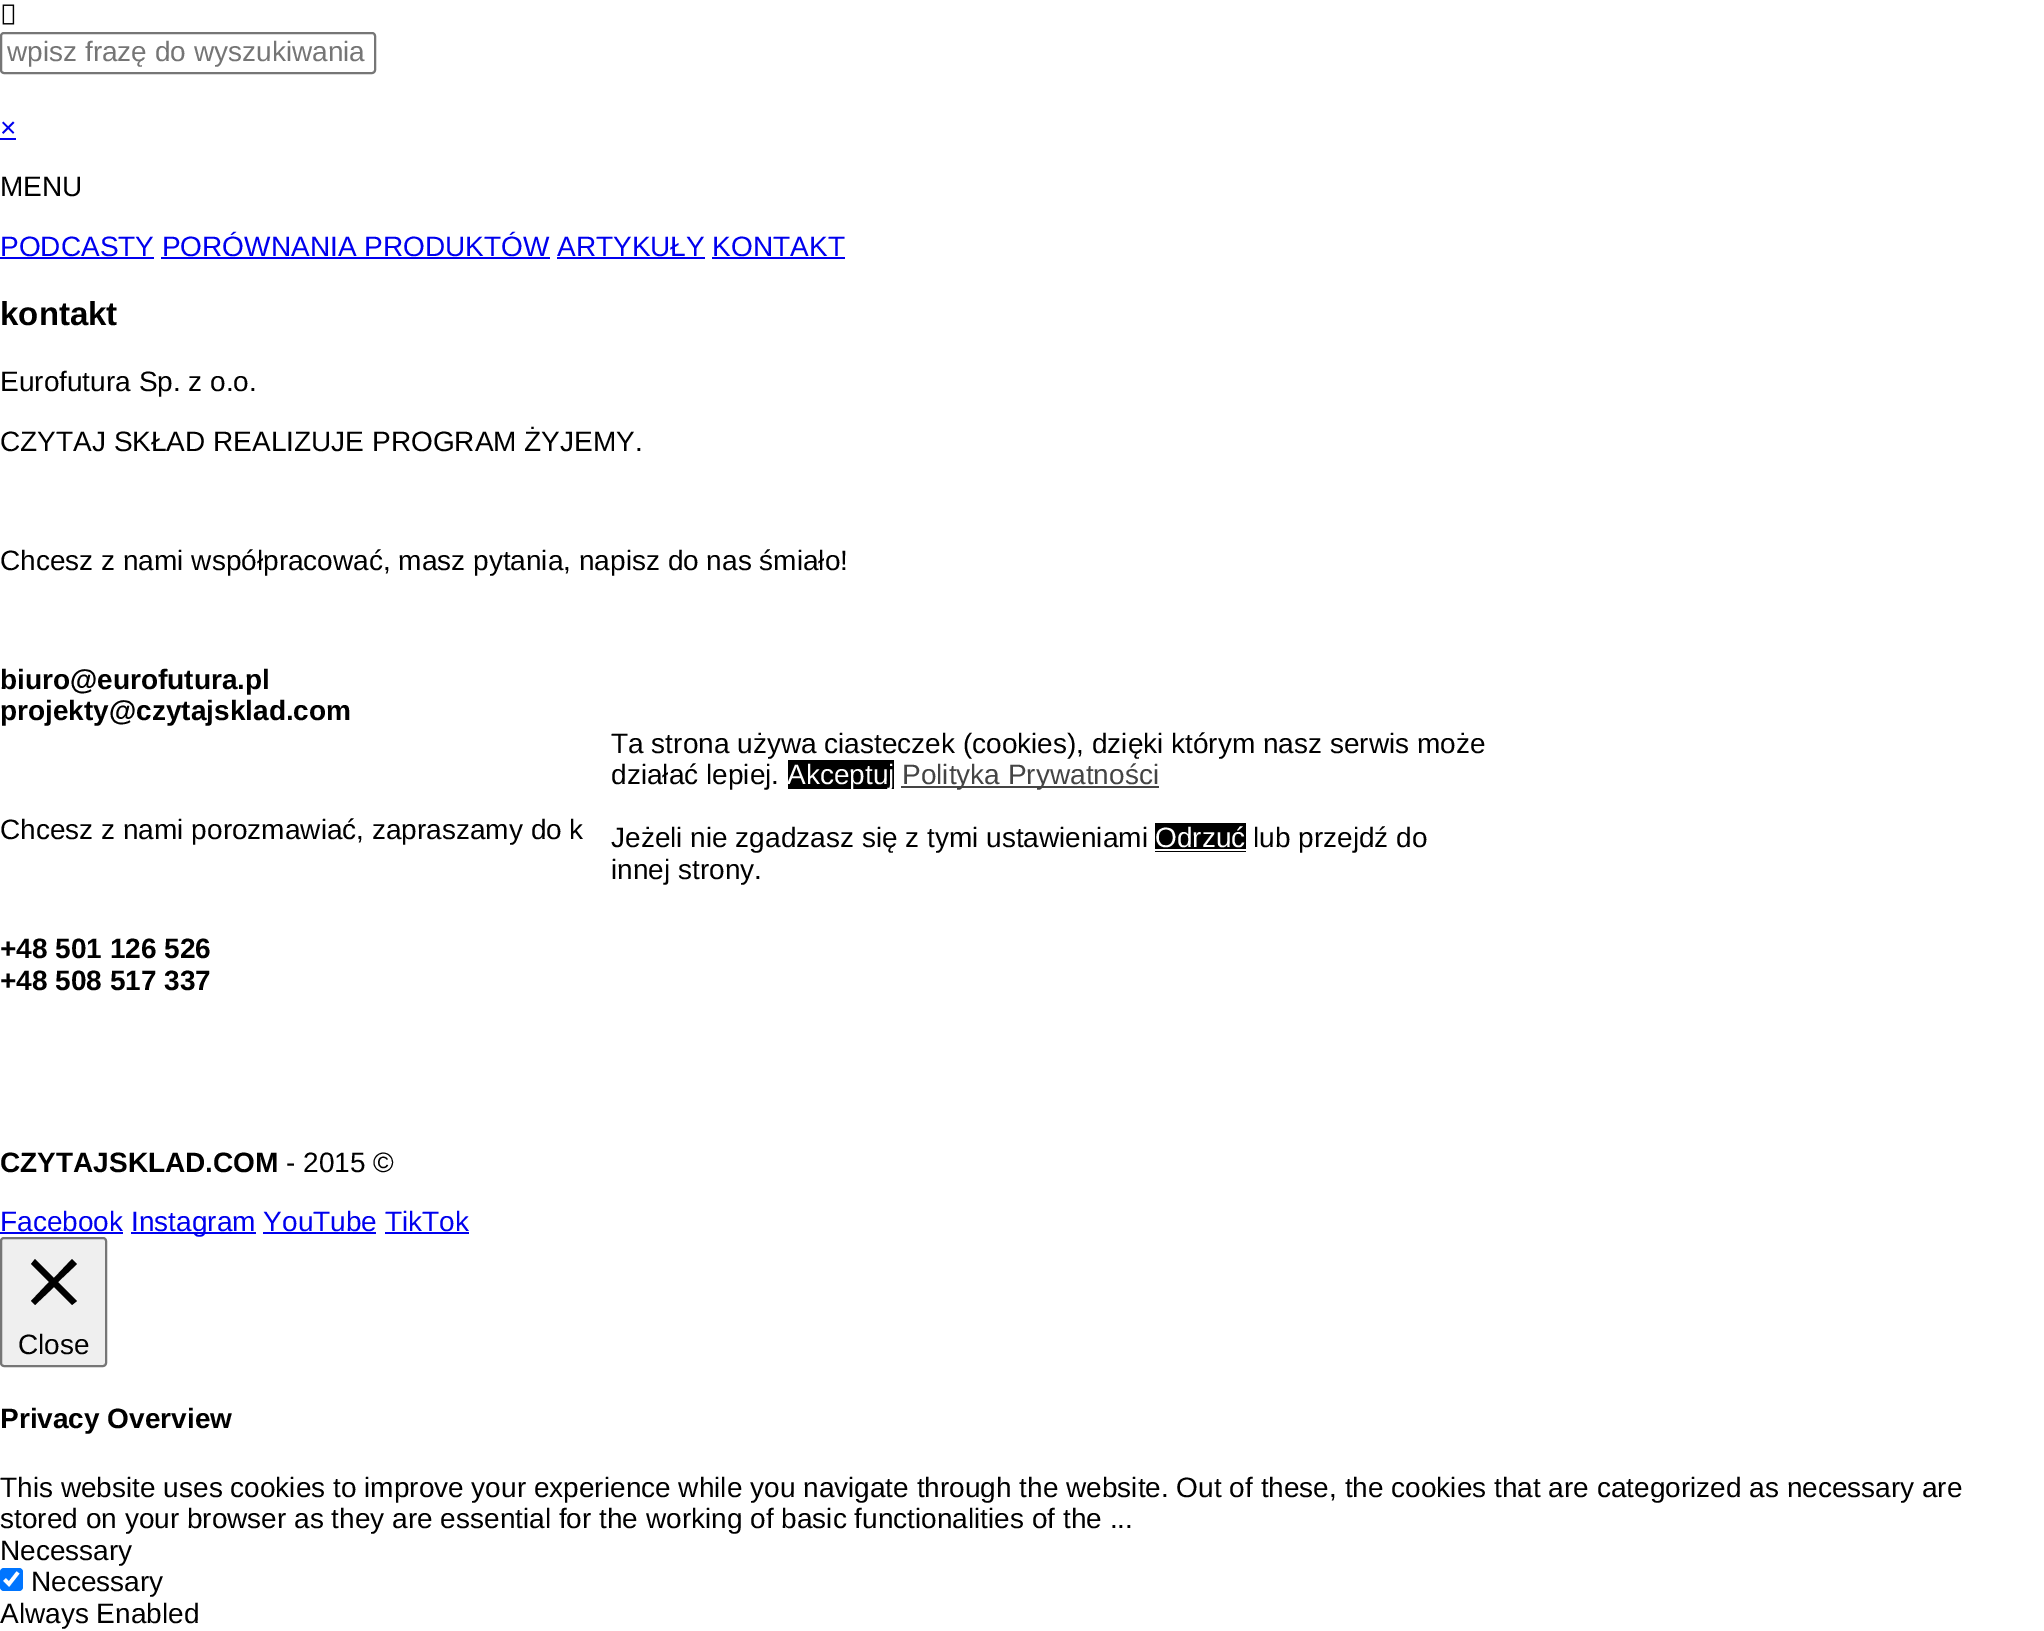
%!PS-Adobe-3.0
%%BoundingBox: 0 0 2044 1631
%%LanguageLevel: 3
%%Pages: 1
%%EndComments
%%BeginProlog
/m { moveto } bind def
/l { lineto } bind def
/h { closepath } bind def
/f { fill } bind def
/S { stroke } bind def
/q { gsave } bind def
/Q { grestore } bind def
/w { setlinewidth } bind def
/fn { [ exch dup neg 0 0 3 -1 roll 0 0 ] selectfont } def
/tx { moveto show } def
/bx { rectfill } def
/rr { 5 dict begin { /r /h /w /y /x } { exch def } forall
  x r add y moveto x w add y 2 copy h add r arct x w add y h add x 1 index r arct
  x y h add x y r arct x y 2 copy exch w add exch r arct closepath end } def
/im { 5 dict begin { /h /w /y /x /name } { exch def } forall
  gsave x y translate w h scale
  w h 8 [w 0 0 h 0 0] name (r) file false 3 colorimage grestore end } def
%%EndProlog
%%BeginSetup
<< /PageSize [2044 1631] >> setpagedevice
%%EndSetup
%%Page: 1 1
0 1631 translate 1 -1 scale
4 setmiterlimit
1 setgray
0 0 2044 1631 bx
(image0.raw) 2 4 13 21 im
0.463 setgray
2 w
1 33 374 40 3 rr S
/LiberationSans-Regular 28 fn
0.459 setgray
(wpisz frazę do wyszukiwania) 7 61 tx
0 0 0.933 setrgbcolor
(×) 0 137 tx
0 138 16 2 bx
0 setgray
(MENU) 0 196 tx
0 0 0.933 setrgbcolor
(PODCASTY PORÓWNANIA PRODUKTÓW ARTYKUŁY KONTAKT) 0 256 tx
0 257 154 2 bx
161 257 389 2 bx
557 257 148 2 bx
712 257 133 2 bx
/LiberationSans-Bold 33 fn
0 setgray
(kontakt) 0 325 tx
/LiberationSans-Regular 28 fn
(Eurofutura Sp. z o.o.) 0 391 tx
(CZYTAJ SKŁAD REALIZUJE PROGRAM ŻYJEMY.) 0 451 tx
(Chcesz z nami współpracować, masz pytania, napisz do nas śmiało!) 0 570 tx
/LiberationSans-Bold 28 fn
(biuro@eurofutura.pl) 0 689 tx
(projekty@czytajsklad.com) 0 720 tx
/LiberationSans-Regular 28 fn
(Chcesz z nami porozmawiać, zapraszamy do k) 0 839 tx
/LiberationSans-Bold 28 fn
(+48 501 126 526) 0 958 tx
(+48 508 517 337) 0 990 tx
(CZYTAJSKLAD.COM) 0 1172 tx
/LiberationSans-Regular 28 fn
(- 2015 ©) 286 1172 tx
0 0 0.933 setrgbcolor
(Facebook) 0 1231 tx
0 1232 123 2 bx
131 1232 125 2 bx
(Instagram YouTube TikTok) 131 1231 tx
263 1232 113 2 bx
385 1232 84 2 bx
0 setgray
(Ta strona używa ciasteczek \(cookies\), dzięki którym nasz serwis może) 611 753 tx
(działać lepiej.) 611 784 tx
788 760 106 29 bx
1 setgray
(Akceptuj) 787 784 tx
0.267 setgray
901 786 258 2 bx
(Polityka Prywatności) 902 784 tx
0 setgray
(Jeżeli nie zgadzasz się z tymi ustawieniami) 611 847 tx
1155 823 91 29 bx
1 setgray
(Odrzuć) 1155 847 tx
1155 849 91 2 bx
0 setgray
(lub przejdź do) 1253 847 tx
(innej strony.) 611 879 tx
0.937 setgray
1 1238 105 128 3 rr q f Q
0.463 setgray
S
0 setgray
77 1264 m 72 1259 l 54 1278 l 35 1259 l 31 1264 l 49 1282 l 31 1301 l 35 1305 l 54 1287 l 72 1305 l 77 1301 l 58 1282 l h f
(Close) 18 1354 tx
/LiberationSans-Bold 28 fn
(Privacy Overview) 0 1428 tx
/LiberationSans-Regular 28 fn
(This website uses cookies to improve your experience while you navigate through the website. Out of these, the cookies that are categorized as necessary are) 0 1497 tx
(stored on your browser as they are essential for the working of basic functionalities of the ...) 0 1528 tx
(Necessary) 0 1560 tx
0 0.459 1 setrgbcolor
0 1568 23 23 4 rr f
1 setgray
3.6 w
4.5 1579.5 m 9 1584 l 18 1572.5 l S
0 setgray
(Necessary) 31 1591 tx
(Always Enabled) 0 1623 tx
showpage
%%EOF
